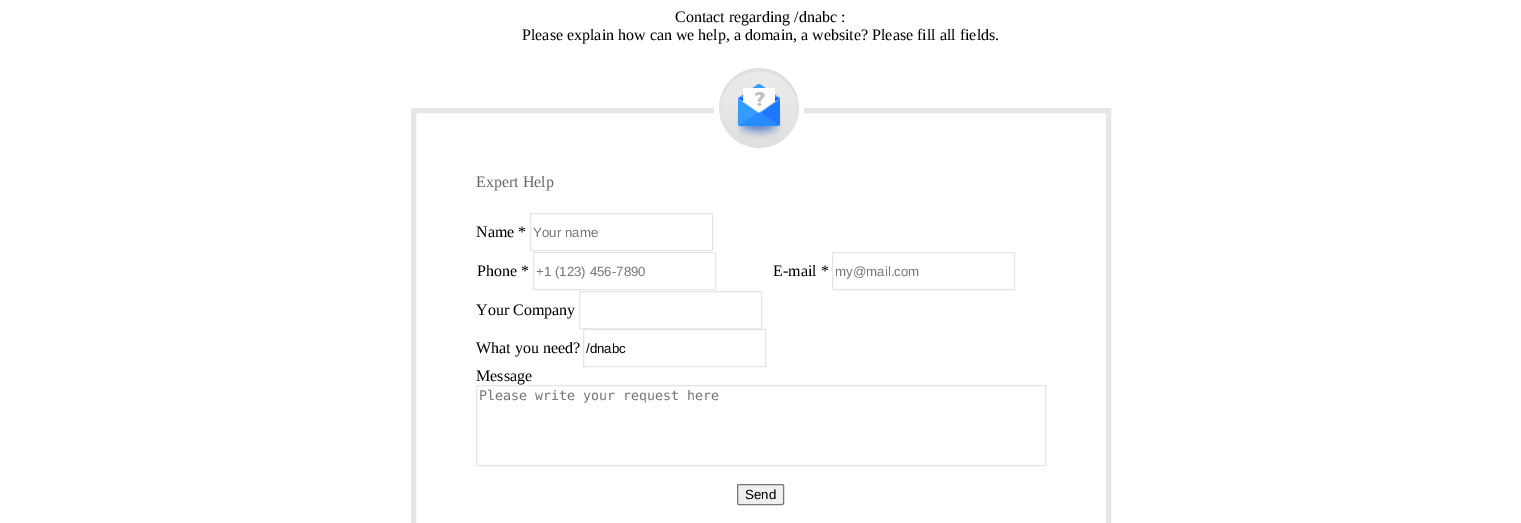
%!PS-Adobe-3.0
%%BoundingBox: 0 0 1521 523
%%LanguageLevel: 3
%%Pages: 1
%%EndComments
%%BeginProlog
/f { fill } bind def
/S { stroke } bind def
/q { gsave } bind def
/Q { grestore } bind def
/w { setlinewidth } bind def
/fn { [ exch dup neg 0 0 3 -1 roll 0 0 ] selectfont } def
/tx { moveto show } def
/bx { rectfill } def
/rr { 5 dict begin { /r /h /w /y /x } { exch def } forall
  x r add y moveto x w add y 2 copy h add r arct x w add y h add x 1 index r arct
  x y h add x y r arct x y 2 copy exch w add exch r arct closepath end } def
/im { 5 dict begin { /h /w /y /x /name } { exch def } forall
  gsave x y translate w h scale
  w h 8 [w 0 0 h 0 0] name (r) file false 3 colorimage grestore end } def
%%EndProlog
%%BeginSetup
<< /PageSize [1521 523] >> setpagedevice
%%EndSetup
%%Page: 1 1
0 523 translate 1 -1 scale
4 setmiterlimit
1 setgray
0 0 1521 523 bx
/LiberationSerif-Regular 16 fn
0 setgray
(Contact regarding /dnabc :) 675 22 tx
(Please explain how can we help, a domain, a website? Please fill all fields.) 522 40 tx
0.902 setgray
5 w
413.5 110.5 695 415 rectstroke
(image0.raw) 714 68 90 80 im
0.4 setgray
(Expert Help) 476 187 tx
0 setgray
(Name *) 476 237 tx
0.898 setgray
1 w
530.5 213.5 182 37 0.5 rr S
/LiberationSans-Regular 13.3 fn
0.459 setgray
(Your name) 533 237 tx
/LiberationSerif-Regular 16 fn
0 setgray
(Phone *) 477 276 tx
0.898 setgray
533.5 252.5 182 37 0.5 rr S
/LiberationSans-Regular 13.3 fn
0.459 setgray
(+1 \(123\) 456-7890) 536 276 tx
/LiberationSerif-Regular 16 fn
0 setgray
(E-mail *) 773 276 tx
0.898 setgray
832.5 252.5 182 37 0.5 rr S
/LiberationSans-Regular 13.3 fn
0.459 setgray
(my@mail.com) 835 276 tx
/LiberationSerif-Regular 16 fn
0 setgray
(Your Company) 476 315 tx
0.898 setgray
579.5 291.5 182 37 0.5 rr S
0 setgray
(What you need?) 476 353 tx
0.898 setgray
583.5 329.5 182 37 0.5 rr S
/LiberationSans-Regular 13.3 fn
0 setgray
(/dnabc) 586 353 tx
/LiberationSerif-Regular 16 fn
(Message) 476 381 tx
0.898 setgray
476.5 385.5 569 80 0.5 rr S
/DejaVuSansMono-Regular 13.3 fn
0.459 setgray
(Please write your request here) 479 400 tx
0.937 setgray
737.5 484.5 46 20 1.5 rr q f Q
0.463 setgray
S
/LiberationSans-Regular 13.3 fn
0 setgray
(Send) 745 499 tx
showpage
%%EOF
